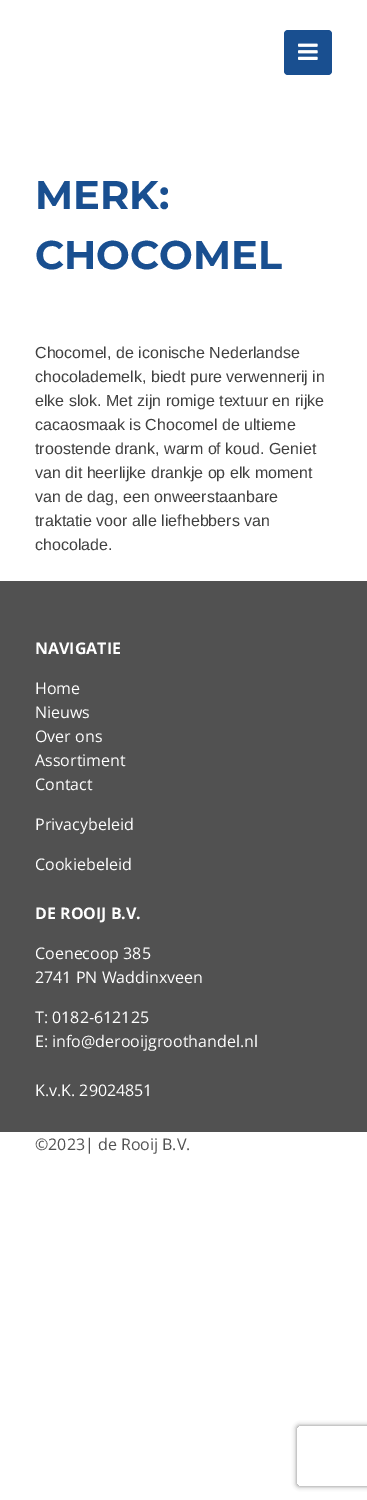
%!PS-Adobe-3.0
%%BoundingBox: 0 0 367 1500
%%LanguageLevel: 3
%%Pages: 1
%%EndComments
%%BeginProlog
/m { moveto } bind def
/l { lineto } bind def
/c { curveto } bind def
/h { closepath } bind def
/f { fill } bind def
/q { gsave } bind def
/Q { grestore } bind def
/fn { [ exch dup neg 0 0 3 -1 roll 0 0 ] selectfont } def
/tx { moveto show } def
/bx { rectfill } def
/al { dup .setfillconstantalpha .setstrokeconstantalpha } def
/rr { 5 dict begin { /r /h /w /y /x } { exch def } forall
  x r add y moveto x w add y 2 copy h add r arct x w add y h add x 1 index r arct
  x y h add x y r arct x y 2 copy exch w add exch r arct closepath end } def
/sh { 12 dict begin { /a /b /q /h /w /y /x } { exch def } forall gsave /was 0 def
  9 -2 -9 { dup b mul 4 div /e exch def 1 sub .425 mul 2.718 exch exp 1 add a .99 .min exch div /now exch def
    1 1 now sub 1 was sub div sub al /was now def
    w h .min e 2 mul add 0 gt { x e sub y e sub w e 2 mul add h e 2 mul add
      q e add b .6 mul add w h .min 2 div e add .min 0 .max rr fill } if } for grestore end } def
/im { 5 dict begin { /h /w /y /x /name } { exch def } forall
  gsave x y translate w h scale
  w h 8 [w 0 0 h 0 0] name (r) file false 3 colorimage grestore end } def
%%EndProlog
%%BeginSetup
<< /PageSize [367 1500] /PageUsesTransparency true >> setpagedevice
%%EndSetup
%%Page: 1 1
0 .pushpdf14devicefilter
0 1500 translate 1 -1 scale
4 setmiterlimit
1 setgray
0 0 367 1500 bx
0.098 0.31 0.565 setrgbcolor
284 30 48 45 4 rr f
(image0.raw) 298 43 20 17 im
/Montserrat-Bold 40 fn
(MERK:) 35 209 tx
(CHOCOMEL) 35 269 tx
/LiberationSans-Regular 16 fn
0.251 setgray
(Chocomel, de iconische Nederlandse) 35 358 tx
(chocolademelk, biedt pure verwennerij in) 35 382 tx
(elke slok. Met zijn romige textuur en rijke) 35 406 tx
(cacaosmaak is Chocomel de ultieme) 35 430 tx
(troostende drank, warm of koud. Geniet) 35 454 tx
(van dit heerlijke drankje op elk moment) 35 478 tx
(van de dag, een onweerstaanbare) 35 502 tx
(traktatie voor alle liefhebbers van) 35 526 tx
(chocolade.) 35 550 tx
0.318 setgray
0 581 367 551 bx
/OpenSans-Bold 16 fn
1 setgray
(NAVIGATIE) 35 654 tx
/OpenSans-Regular 16 fn
(Home) 35 694 tx
(Nieuws) 35 718 tx
(Over ons) 35 742 tx
(Assortiment) 35 766 tx
(Contact) 35 790 tx
(Privacybeleid) 35 830 tx
(Cookiebeleid) 35 870 tx
/OpenSans-Bold 16 fn
(DE ROOIJ B.V.) 35 919 tx
/OpenSans-Regular 16 fn
(Coenecoop 385) 35 959 tx
(2741 PN Waddinxveen) 35 983 tx
(T: 0182-612125) 35 1023 tx
(E: info@derooijgroothandel.nl) 35 1047 tx
(K.v.K. 29024851) 35 1096 tx
0.318 setgray
(©2023| de Rooij B.V.) 35 1150 tx
q
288 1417 m 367 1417 l 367 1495 l 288 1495 l h 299 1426 m 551 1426 l 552 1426 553 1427 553 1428 c 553 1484 l 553 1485 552 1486 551 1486 c 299 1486 l 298 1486 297 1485 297 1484 c 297 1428 l 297 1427 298 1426 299 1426 c h eoclip newpath
0.502 setgray
297 1426 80 60 2 2.5 1 sh
Q
.poppdf14devicefilter showpage
%%EOF
